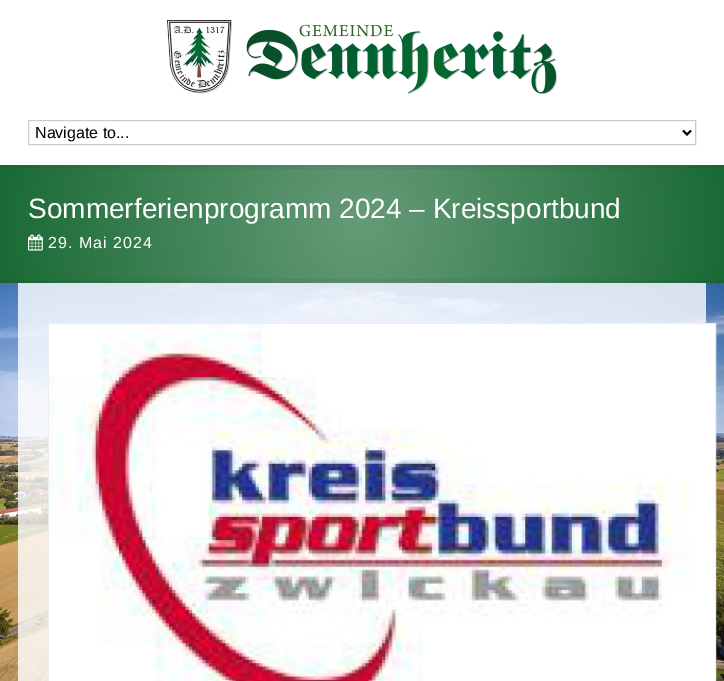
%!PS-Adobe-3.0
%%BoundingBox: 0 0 724 681
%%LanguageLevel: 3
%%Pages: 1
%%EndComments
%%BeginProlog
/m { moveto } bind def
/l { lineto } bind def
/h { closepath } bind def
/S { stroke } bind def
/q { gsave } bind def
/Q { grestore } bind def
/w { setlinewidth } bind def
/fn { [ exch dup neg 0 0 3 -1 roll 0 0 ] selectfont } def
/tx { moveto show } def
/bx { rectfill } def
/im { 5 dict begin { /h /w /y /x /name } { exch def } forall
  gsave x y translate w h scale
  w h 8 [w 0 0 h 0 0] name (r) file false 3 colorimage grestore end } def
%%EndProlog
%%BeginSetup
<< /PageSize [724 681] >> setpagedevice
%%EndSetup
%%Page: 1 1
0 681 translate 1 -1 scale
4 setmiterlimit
1 setgray
0 0 724 681 bx
(image0.raw) 167 20 390 74 im
0.8 setgray
28.5 120.5 667 24 rectstroke
0 setgray
2 w
683 130.5 m 687 134.5 l 691 130.5 l S
/LiberationSans-Regular 16 fn
(Navigate to...) 35 138 tx
q 0 169 m 724 169 l 724 279 l 0 279 l h clip newpath 362 224 translate 367 367 scale
<< /ShadingType 3 /ColorSpace /DeviceRGB /Coords [0 0 0 0 0 1] /Extend [true true] /Function << /FunctionType 2 /Domain [0 1] /C0 [0.4 0.608 0.471] /C1 [0.102 0.416 0.208] /N 1 >> >> shfill Q
q 0 165 m 724 165 l 724 169 l 0 169 l h clip newpath 362 224 translate 367 367 scale
<< /ShadingType 3 /ColorSpace /DeviceRGB /Coords [0 0 0 0 0 1] /Extend [true true] /Function << /FunctionType 2 /Domain [0 1] /C0 [0.38 0.576 0.447] /C1 [0.098 0.396 0.196] /N 1 >> >> shfill Q
q 0 279 m 724 279 l 724 283 l 0 283 l h clip newpath 362 224 translate 367 367 scale
<< /ShadingType 3 /ColorSpace /DeviceRGB /Coords [0 0 0 0 0 1] /Extend [true true] /Function << /FunctionType 2 /Domain [0 1] /C0 [0.38 0.576 0.447] /C1 [0.098 0.396 0.196] /N 1 >> >> shfill Q
/LiberationSans-Regular 28 fn
1 setgray
(Sommerferienprogramm 2024 – Kreissportbund) 28 218 tx
(image1.raw) 28 234 15 17 im
/LiberationSans-Regular 16 fn
48 248 m 1 0 (29. Mai 2024) ashow
(image2.raw) 0 283 724 398 im
0.933 setgray
1 w
48.5 323.5 667 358 rectstroke
(image3.raw) 49 324 666 357 im
showpage
%%EOF
